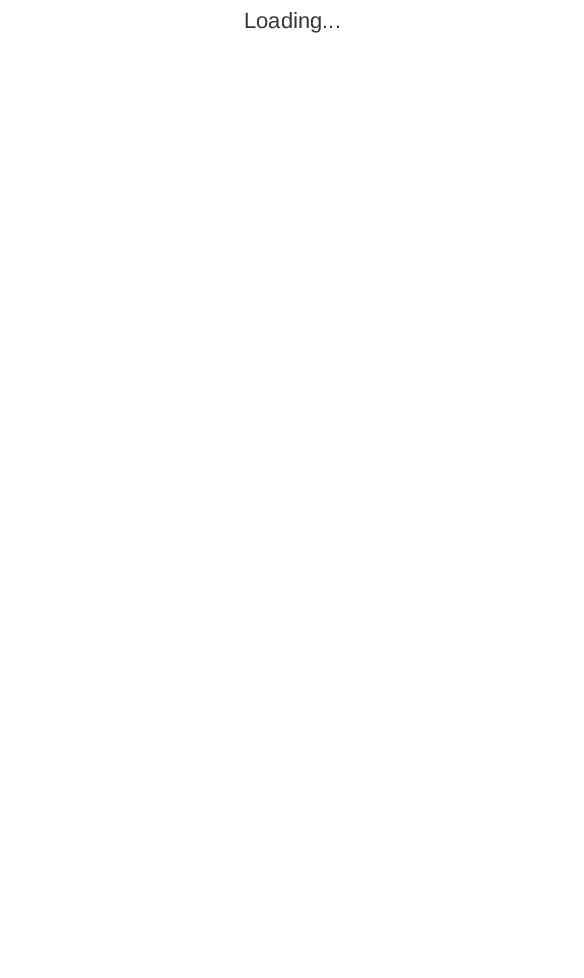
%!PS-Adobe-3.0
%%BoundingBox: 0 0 584 978
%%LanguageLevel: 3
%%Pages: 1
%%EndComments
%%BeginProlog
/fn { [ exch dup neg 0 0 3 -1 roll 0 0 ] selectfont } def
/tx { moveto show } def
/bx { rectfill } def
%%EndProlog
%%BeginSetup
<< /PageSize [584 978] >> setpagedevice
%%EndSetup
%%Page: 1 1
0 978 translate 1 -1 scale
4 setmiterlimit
1 setgray
0 0 584 978 bx
/LiberationSans-Regular 22 fn
0.196 0.224 0.247 setrgbcolor
(Loading...) 244 28 tx
showpage
%%EOF
